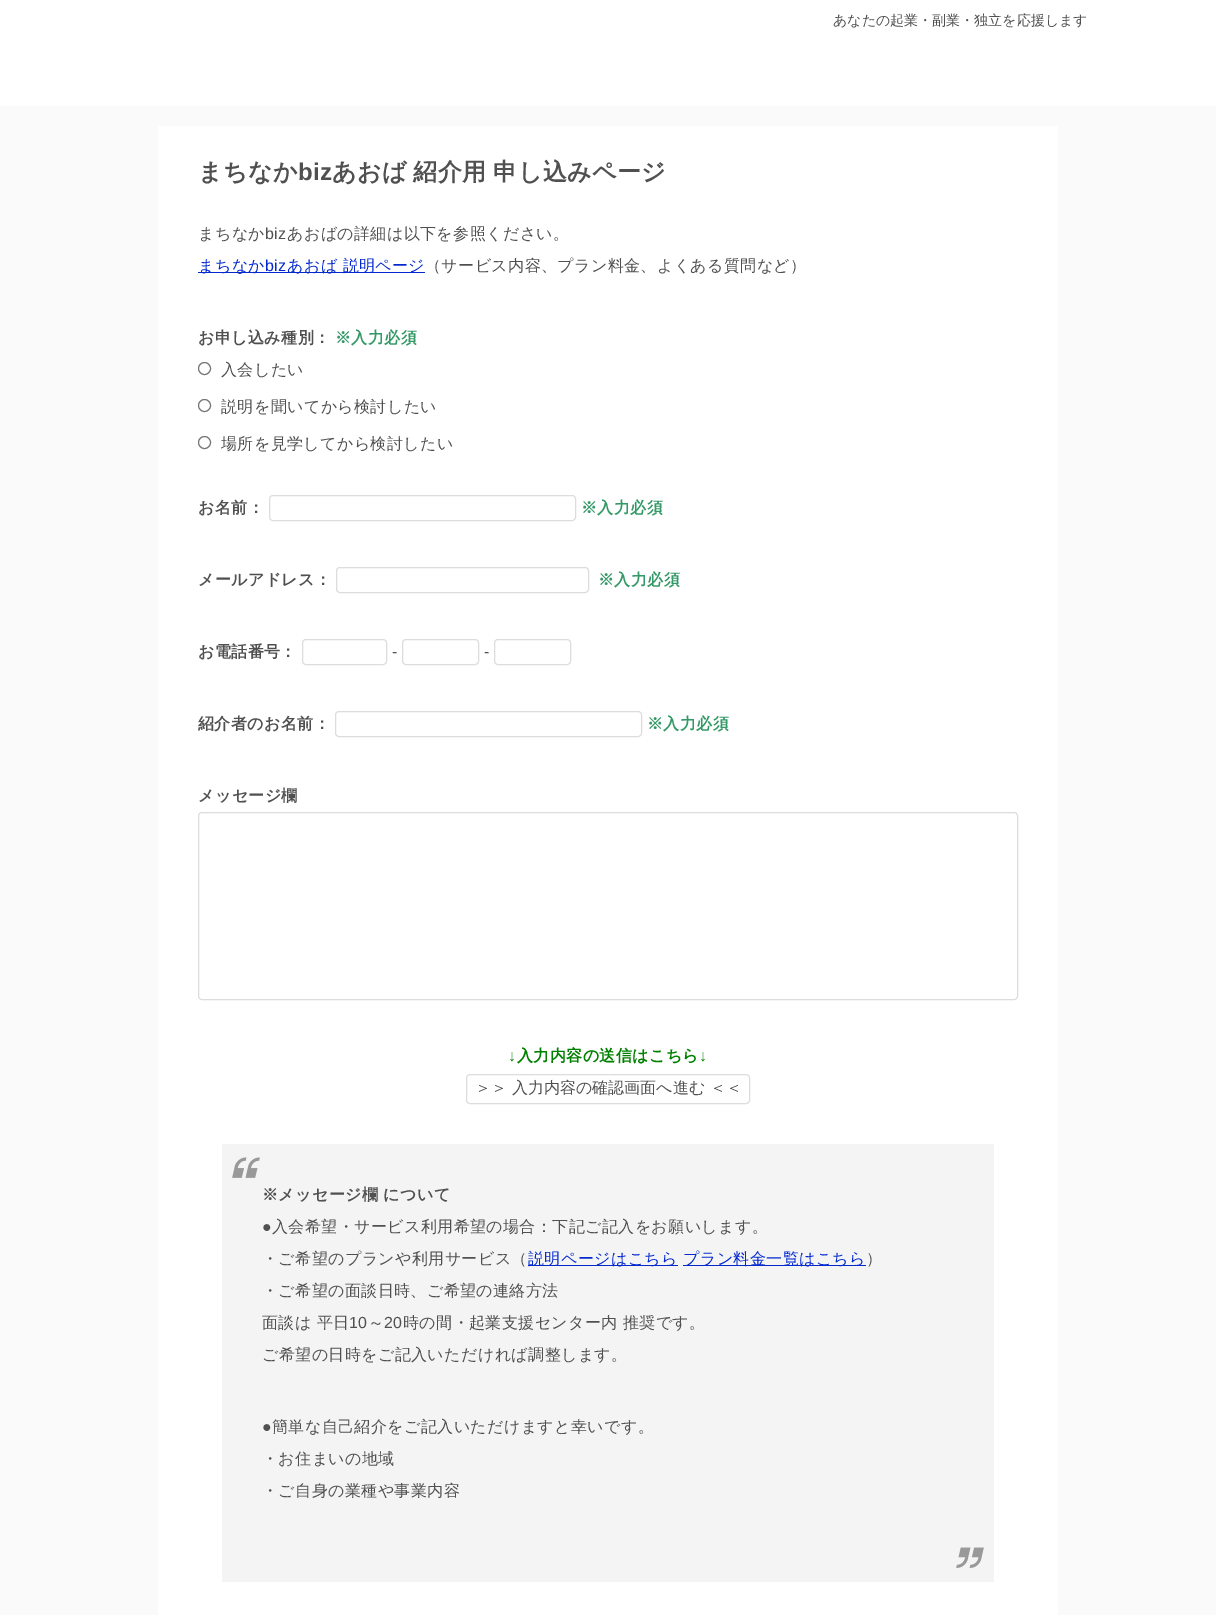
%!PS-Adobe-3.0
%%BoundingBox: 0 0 1216 1615
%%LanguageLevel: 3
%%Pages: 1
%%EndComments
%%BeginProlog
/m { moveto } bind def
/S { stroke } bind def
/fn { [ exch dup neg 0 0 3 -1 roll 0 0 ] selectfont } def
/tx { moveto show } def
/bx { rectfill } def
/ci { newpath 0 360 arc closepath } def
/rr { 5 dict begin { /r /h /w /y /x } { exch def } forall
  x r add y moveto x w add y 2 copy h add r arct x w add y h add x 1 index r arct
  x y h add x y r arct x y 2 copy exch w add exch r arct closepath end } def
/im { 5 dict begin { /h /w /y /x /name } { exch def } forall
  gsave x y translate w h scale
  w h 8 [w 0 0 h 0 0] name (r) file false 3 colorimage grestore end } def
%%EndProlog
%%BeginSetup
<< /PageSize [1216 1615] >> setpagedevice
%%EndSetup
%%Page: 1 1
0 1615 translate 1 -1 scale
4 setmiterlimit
0.98 setgray
0 0 1216 1615 bx
1 setgray
0 0 1216 106 bx
/WenQuanYiZenHei-Medium 14 fn
0.314 setgray
(あなたの起業・副業・独立を応援します) 833 25 tx
1 setgray
158 126 900 1489 bx
/WenQuanYiZenHei-Bold 24 fn
0.314 setgray
198 180 m 0.4 0 (まちなか) ashow
/LiberationSans-Bold 24 fn
298 180 m 0.4 0 (biz) ashow
/WenQuanYiZenHei-Bold 24 fn
332 180 m -1 0 32 0.4 0 (あおば 紹介用 申し込みページ) awidthshow
/WenQuanYiZenHei-Medium 16 fn
198 239 m 0.4 0 (まちなか) ashow
/LiberationSans-Regular 16 fn
265 239 m 0.4 0 (biz) ashow
/WenQuanYiZenHei-Medium 16 fn
287 239 m 0.4 0 (あおばの詳細は以下を参照ください。) ashow
0.012 0.161 0.808 setrgbcolor
198 272 227 1 bx
198 271 m 0.4 0 (まちなか) ashow
/LiberationSans-Regular 16 fn
265 271 m 0.4 0 (biz) ashow
/WenQuanYiZenHei-Medium 16 fn
287 271 m 0.4 0 (あおば 説明ページ) ashow
0.314 setgray
425 271 m 0.4 0 (（サービス内容、プラン料金、よくある質問など）) ashow
/WenQuanYiZenHei-Bold 16 fn
198 343 m 0.4 0 (お申し込み種別：) ashow
0.2 0.6 0.4 setrgbcolor
335 343 m 0.4 0 (※入力必須) ashow
0.463 setgray
204.5 368.5 6 ci S
/WenQuanYiZenHei-Medium 16 fn
0.314 setgray
221 375 m 0.4 0 (入会したい) ashow
0.463 setgray
204.5 405.5 6 ci S
0.314 setgray
221 412 m 0.4 0 (説明を聞いてから検討したい) ashow
0.463 setgray
204.5 442.5 6 ci S
0.314 setgray
221 449 m 0.4 0 (場所を見学してから検討したい) ashow
/WenQuanYiZenHei-Bold 16 fn
198 513 m 0.4 0 (お名前：) ashow
0.867 setgray
269.5 495.5 306 25 3.5 rr S
0.2 0.6 0.4 setrgbcolor
581 513 m 0.4 0 (※入力必須) ashow
0.314 setgray
198 585 m 0.4 0 (メールアドレス：) ashow
0.867 setgray
336.5 567.5 252 25 3.5 rr S
0.2 0.6 0.4 setrgbcolor
598 585 m 0.4 0 (※入力必須) ashow
0.314 setgray
198 657 m 0.4 0 (お電話番号：) ashow
0.867 setgray
302.5 639.5 84 25 3.5 rr S
/LiberationSans-Regular 16 fn
0.314 setgray
392 657 m 0.4 0 (-) ashow
0.867 setgray
402.5 639.5 76 25 3.5 rr S
0.314 setgray
484 657 m 0.4 0 (-) ashow
0.867 setgray
494.5 639.5 76 25 3.5 rr S
/WenQuanYiZenHei-Bold 16 fn
0.314 setgray
198 729 m 0.4 0 (紹介者のお名前：) ashow
0.867 setgray
335.5 711.5 306 25 3.5 rr S
0.2 0.6 0.4 setrgbcolor
647 729 m 0.4 0 (※入力必須) ashow
0.314 setgray
198 801 m 0.4 0 (メッセージ欄) ashow
0.867 setgray
198.5 812.5 819 187 3.5 rr S
/LiberationSans-Bold 16 fn
0 0.502 0 setrgbcolor
508 1061 m 0.4 0 (↓) ashow
/WenQuanYiZenHei-Bold 16 fn
517 1061 m 0.4 0 (入力内容の送信はこちら) ashow
/LiberationSans-Bold 16 fn
699 1061 m 0.4 0 (↓) ashow
0.867 setgray
466.5 1074.5 283 29 3.5 rr S
/WenQuanYiZenHei-Medium 16 fn
0.314 setgray
(＞＞ 入力内容の確認画面へ進む ＜＜) 475 1093 tx
0.957 setgray
222 1144 772 438 bx
(image0.raw) 232 1157 28 21 im
/WenQuanYiZenHei-Bold 16 fn
0.314 setgray
262 1200 m 0.4 0 (※メッセージ欄 について) ashow
/LiberationSans-Regular 16 fn
262 1232 m 0.4 0 (●) ashow
/WenQuanYiZenHei-Medium 16 fn
272 1232 m 0.4 0 (入会希望・サービス利用希望の場合：下記ご記入をお願いします。) ashow
262 1264 m 0.4 0 (・ご希望のプランや利用サービス（) ashow
0.012 0.161 0.808 setrgbcolor
528 1265 150 1 bx
528 1264 m 0.4 0 (説明ページはこちら) ashow
683 1265 183 1 bx
683 1264 m 0.4 0 (プラン料金一覧はこちら) ashow
0.314 setgray
866 1264 m 0.4 0 (）) ashow
262 1296 m 0.4 0 (・ご希望の面談日時、ご希望の連絡方法) ashow
262 1328 m 0.4 0 (面談は 平日) ashow
/LiberationSans-Regular 16 fn
349 1328 m 0.4 0 (10) ashow
/WenQuanYiZenHei-Medium 16 fn
368 1328 m 0.4 0 (～) ashow
/LiberationSans-Regular 16 fn
384 1328 m 0.4 0 (20) ashow
/WenQuanYiZenHei-Medium 16 fn
403 1328 m 0.4 0 (時の間・起業支援センター内 推奨です。) ashow
262 1360 m 0.4 0 (ご希望の日時をご記入いただければ調整します。) ashow
/LiberationSans-Regular 16 fn
262 1432 m 0.4 0 (●) ashow
/WenQuanYiZenHei-Medium 16 fn
272 1432 m 0.4 0 (簡単な自己紹介をご記入いただけますと幸いです。) ashow
262 1464 m 0.4 0 (・お住まいの地域) ashow
262 1496 m 0.4 0 (・ご自身の業種や事業内容) ashow
(image1.raw) 956 1547 28 21 im
showpage
%%EOF
